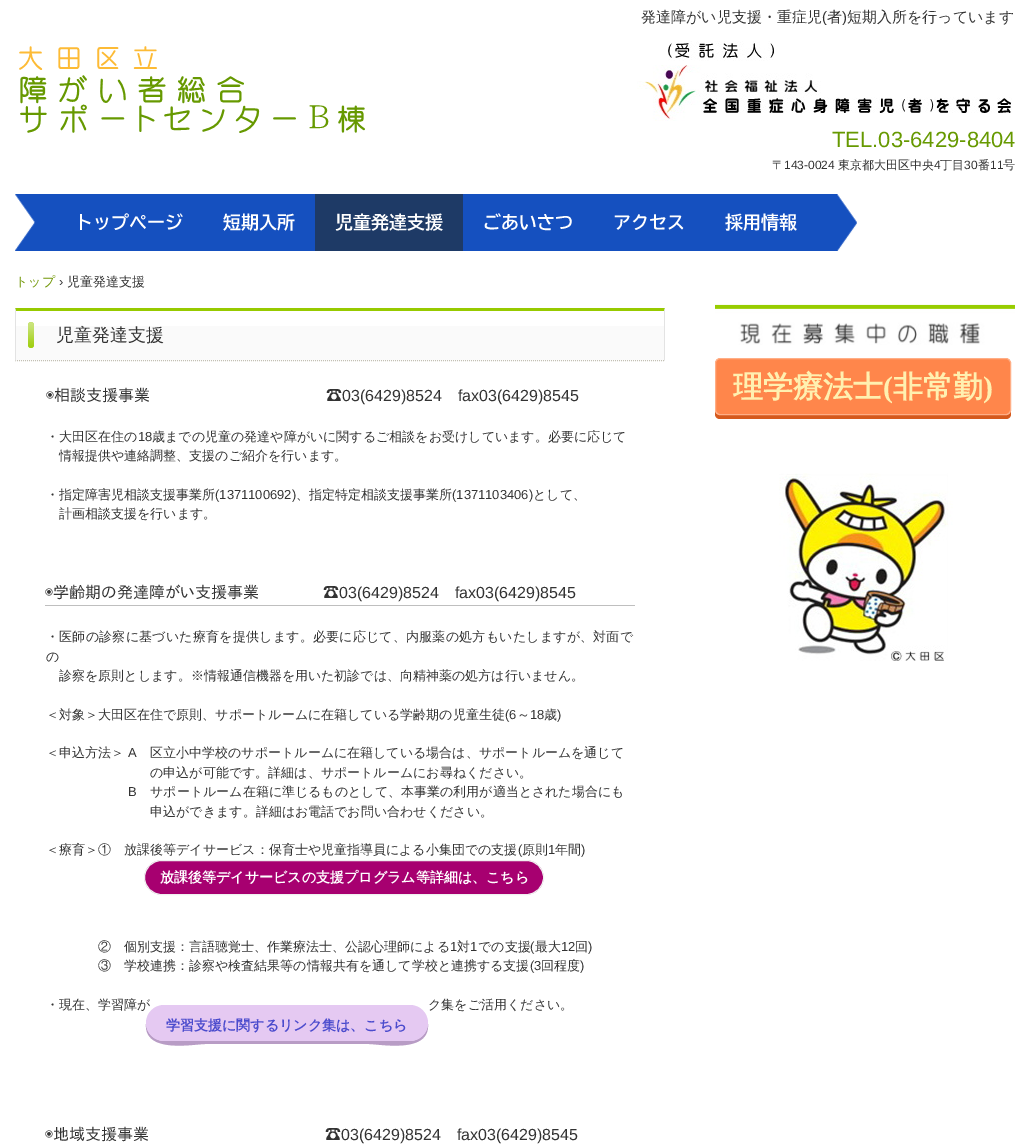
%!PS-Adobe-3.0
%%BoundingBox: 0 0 1030 1146
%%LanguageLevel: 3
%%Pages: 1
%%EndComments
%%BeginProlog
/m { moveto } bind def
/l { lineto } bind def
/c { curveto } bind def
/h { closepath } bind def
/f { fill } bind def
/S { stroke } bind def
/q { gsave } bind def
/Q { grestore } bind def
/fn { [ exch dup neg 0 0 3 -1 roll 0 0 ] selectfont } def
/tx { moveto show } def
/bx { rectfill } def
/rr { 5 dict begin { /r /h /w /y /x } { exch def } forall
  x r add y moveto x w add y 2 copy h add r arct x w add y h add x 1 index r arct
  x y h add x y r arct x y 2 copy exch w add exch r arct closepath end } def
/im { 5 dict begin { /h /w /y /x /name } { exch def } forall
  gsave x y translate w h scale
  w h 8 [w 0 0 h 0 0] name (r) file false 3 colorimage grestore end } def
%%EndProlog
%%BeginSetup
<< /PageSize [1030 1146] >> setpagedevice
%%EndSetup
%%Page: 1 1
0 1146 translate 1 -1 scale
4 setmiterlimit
1 setgray
0 0 1030 1146 bx
/WenQuanYiZenHei-Medium 15 fn
0.2 setgray
(発達障がい児支援・重症児) 641 22 tx
/LiberationSans-Regular 15 fn
(\() 822 22 tx
/WenQuanYiZenHei-Medium 15 fn
(者) 827 22 tx
/LiberationSans-Regular 15 fn
(\)) 842 22 tx
/WenQuanYiZenHei-Medium 15 fn
(短期入所を行っています) 847 22 tx
(image0.raw) 19 46 346 87 im
(image1.raw) 668 41 106 20 im
(image2.raw) 637 61 375 60 im
/LiberationSans-Regular 22 fn
0.4 0.6 0 setrgbcolor
(TEL.03-6429-8404) 832 147 tx
/WenQuanYiZenHei-Medium 12 fn
0.2 setgray
(〒) 772 169 tx
/LiberationSans-Regular 12 fn
(143-0024) 784 169 tx
/WenQuanYiZenHei-Medium 12 fn
(東京都大田区中央) 838 169 tx
/LiberationSans-Regular 12 fn
(4) 934 169 tx
/WenQuanYiZenHei-Medium 12 fn
(丁目) 940 169 tx
/LiberationSans-Regular 12 fn
(30) 964 169 tx
/WenQuanYiZenHei-Medium 12 fn
(番) 978 169 tx
/LiberationSans-Regular 12 fn
(11) 990 169 tx
/WenQuanYiZenHei-Medium 12 fn
(号) 1003 169 tx
(image3.raw) 15 194 40 57 im
0.082 0.314 0.749 setrgbcolor
55 194 260 57 bx
/BIZUDGothic-Bold 18 fn
1 setgray
(トップページ) 75 229 tx
(短期入所) 223 229 tx
0.118 0.227 0.4 setrgbcolor
315 194 148 57 bx
1 setgray
(児童発達支援) 335 229 tx
0.082 0.314 0.749 setrgbcolor
463 194 354 57 bx
1 setgray
(ごあいさつ) 483 229 tx
(アクセス) 613 229 tx
(image4.raw) 817 194 40 57 im
(採用情報) 725 229 tx
/WenQuanYiZenHei-Medium 13 fn
0.435 0.584 0.008 setrgbcolor
(トップ) 15 286 tx
/LiberationSans-Regular 13 fn
0.2 setgray
(›) 59 286 tx
/WenQuanYiZenHei-Medium 13 fn
(児童発達支援) 67 286 tx
0.98 setgray
16 326 649 35 bx
0.592 0.792 0 setrgbcolor
15 308 m 665 308 l 664 311 l 16 311 l h f
0.89 setgray
665 308 m 665 361 l 664 360 l 664 311 l h f
0.765 0.753 0.702 setrgbcolor
[1 1] 0 setdash
15 360.5 m 665 360.5 l S
0.89 setgray
15 361 m 15 308 l 16 311 l 16 360 l h f
(image5.raw) 28 322 6 26 im
/WenQuanYiZenHei-Medium 18 fn
0.2 setgray
(児童発達支援) 56 341 tx
/IPAPGothic-Regular 16 fn
(◉相談支援事業　　　　　　　　　　　☎) 46 401 tx
/LiberationSans-Regular 16 fn
(03\(6429\)8524) 342 401 tx
(fax03\(6429\)8545) 458 401 tx
/WenQuanYiZenHei-Medium 13 fn
(・大田区在住の) 46 441 tx
/LiberationSans-Regular 13 fn
(18) 138 441 tx
/WenQuanYiZenHei-Medium 13 fn
(歳までの児童の発達や障がいに関するご相談をお受けしています。必要に応じて) 152 441 tx
(情報提供や連絡調整、支援のご紹介を行います。) 59 460 tx
(・指定障害児相談支援事業所) 46 499 tx
/LiberationSans-Regular 13 fn
(\(1371100692\)) 215 499 tx
/WenQuanYiZenHei-Medium 13 fn
(、指定特定相談支援事業所) 296 499 tx
/LiberationSans-Regular 13 fn
(\(1371103406\)) 452 499 tx
/WenQuanYiZenHei-Medium 13 fn
(として、) 533 499 tx
(計画相談支援を行います。) 59 518 tx
0.749 setgray
45 605 590 1 bx
/IPAPGothic-Regular 16 fn
0.2 setgray
(◉学齢期の発達障がい支援事業　　　　☎) 45 598 tx
/LiberationSans-Regular 16 fn
(03\(6429\)8524) 339 598 tx
(fax03\(6429\)8545) 455 598 tx
/WenQuanYiZenHei-Medium 13 fn
46 641 m 0.2 0 (・医師の診察に基づいた療育を提供します。必要に応じて、内服薬の処方もいたしますが、対面で) ashow
(の) 46 661 tx
(診察を原則とします。※情報通信機器を用いた初診では、向精神薬の処方は行いません。) 59 680 tx
(＜対象＞大田区在住で原則、サポートルームに在籍している学齢期の児童生徒) 46 719 tx
/LiberationSans-Regular 13 fn
(\(6) 505 719 tx
/WenQuanYiZenHei-Medium 13 fn
(～) 517 719 tx
/LiberationSans-Regular 13 fn
(18) 530 719 tx
/WenQuanYiZenHei-Medium 13 fn
(歳) 544 719 tx
/LiberationSans-Regular 13 fn
(\)) 557 719 tx
/WenQuanYiZenHei-Medium 13 fn
(＜申込方法＞) 46 757 tx
/LiberationSans-Regular 13 fn
(A) 128 757 tx
/WenQuanYiZenHei-Medium 13 fn
(区立小中学校のサポートルームに在籍している場合は、サポートルームを通じて) 150 757 tx
(の申込が可能です。詳細は、サポートルームにお尋ねください。) 150 777 tx
/LiberationSans-Regular 13 fn
(B) 128 796 tx
/WenQuanYiZenHei-Medium 13 fn
(サポートルーム在籍に準じるものとして、本事業の利用が適当とされた場合にも) 150 796 tx
(申込ができます。詳細はお電話でお問い合わせください。) 150 816 tx
(＜療育＞①　放課後等デイサービス：保育士や児童指導員による小集団での支援) 46 854 tx
/LiberationSans-Regular 13 fn
(\() 518 854 tx
/WenQuanYiZenHei-Medium 13 fn
(原則) 522 854 tx
/LiberationSans-Regular 13 fn
(1) 548 854 tx
/WenQuanYiZenHei-Medium 13 fn
(年間) 555 854 tx
/LiberationSans-Regular 13 fn
(\)) 581 854 tx
0.655 0 0.439 setrgbcolor
144.5 860.5 399 34 17 rr q f Q
0.941 setgray
[] 0 setdash
S
/WenQuanYiZenHei-Bold 14 fn
1 setgray
(放課後等デイサービスの支援プログラム等詳細は、こちら) 160 882 tx
/WenQuanYiZenHei-Medium 13 fn
0.2 setgray
(②　個別支援：言語聴覚士、作業療法士、公認心理師による) 98 951 tx
/LiberationSans-Regular 13 fn
(1) 450 951 tx
/WenQuanYiZenHei-Medium 13 fn
(対) 457 951 tx
/LiberationSans-Regular 13 fn
(1) 470 951 tx
/WenQuanYiZenHei-Medium 13 fn
(での支援) 478 951 tx
/LiberationSans-Regular 13 fn
(\() 530 951 tx
/WenQuanYiZenHei-Medium 13 fn
(最大) 535 951 tx
/LiberationSans-Regular 13 fn
(12) 561 951 tx
/WenQuanYiZenHei-Medium 13 fn
(回) 575 951 tx
/LiberationSans-Regular 13 fn
(\)) 588 951 tx
/WenQuanYiZenHei-Medium 13 fn
(③　学校連携：診察や検査結果等の情報共有を通して学校と連携する支援) 98 970 tx
/LiberationSans-Regular 13 fn
(\(3) 530 970 tx
/WenQuanYiZenHei-Medium 13 fn
(回程度) 541 970 tx
/LiberationSans-Regular 13 fn
(\)) 580 970 tx
/WenQuanYiZenHei-Medium 13 fn
(・現在、学習障が) 46 1009 tx
(ク集をご活用ください。) 428 1009 tx
0.722 0.612 0.773 setrgbcolor
146 1024 m 144 1054 194 1044 205 1044 c 369 1044 l 380 1044 430 1054 428 1024 c 427 1034 419 1041 410 1041 c 164 1041 l 155 1041 147 1034 146 1024 c h f
0.898 0.788 0.949 setrgbcolor
146 1005 282 36 18 rr f
/WenQuanYiZenHei-Bold 14 fn
0.294 0.294 0.804 setrgbcolor
(学習支援に関するリンク集は、こちら) 166 1030 tx
/IPAPGothic-Regular 16 fn
0.2 setgray
(◉地域支援事業　　　　　　　　　　　☎) 45 1140 tx
/LiberationSans-Regular 16 fn
(03\(6429\)8524) 341 1140 tx
(fax03\(6429\)8545) 457 1140 tx
(image6.raw) 715 304 300 41 im
0.835 0.349 0.11 setrgbcolor
715 410 m 715 414 l 715 417 717 419 720 419 c 1006 419 l 1009 419 1011 417 1011 414 c 1011 410 l 1011 413 1009 415 1006 415 c 720 415 l 717 415 715 413 715 410 c h f
1 0.525 0.294 setrgbcolor
715.5 358.5 295 56 4.5 rr q f Q
1 0.682 0.525 setrgbcolor
S
/WenQuanYiZenHei-Bold 30 fn
1 0.941 0.69 setrgbcolor
(理学療法士) 733 397 tx
/LiberationSerif-Bold 30 fn
(\() 883 397 tx
/WenQuanYiZenHei-Bold 30 fn
(非常勤) 893 397 tx
/LiberationSerif-Bold 30 fn
(\)) 983 397 tx
(image7.raw) 779 473 174 188 im
showpage
%%EOF
